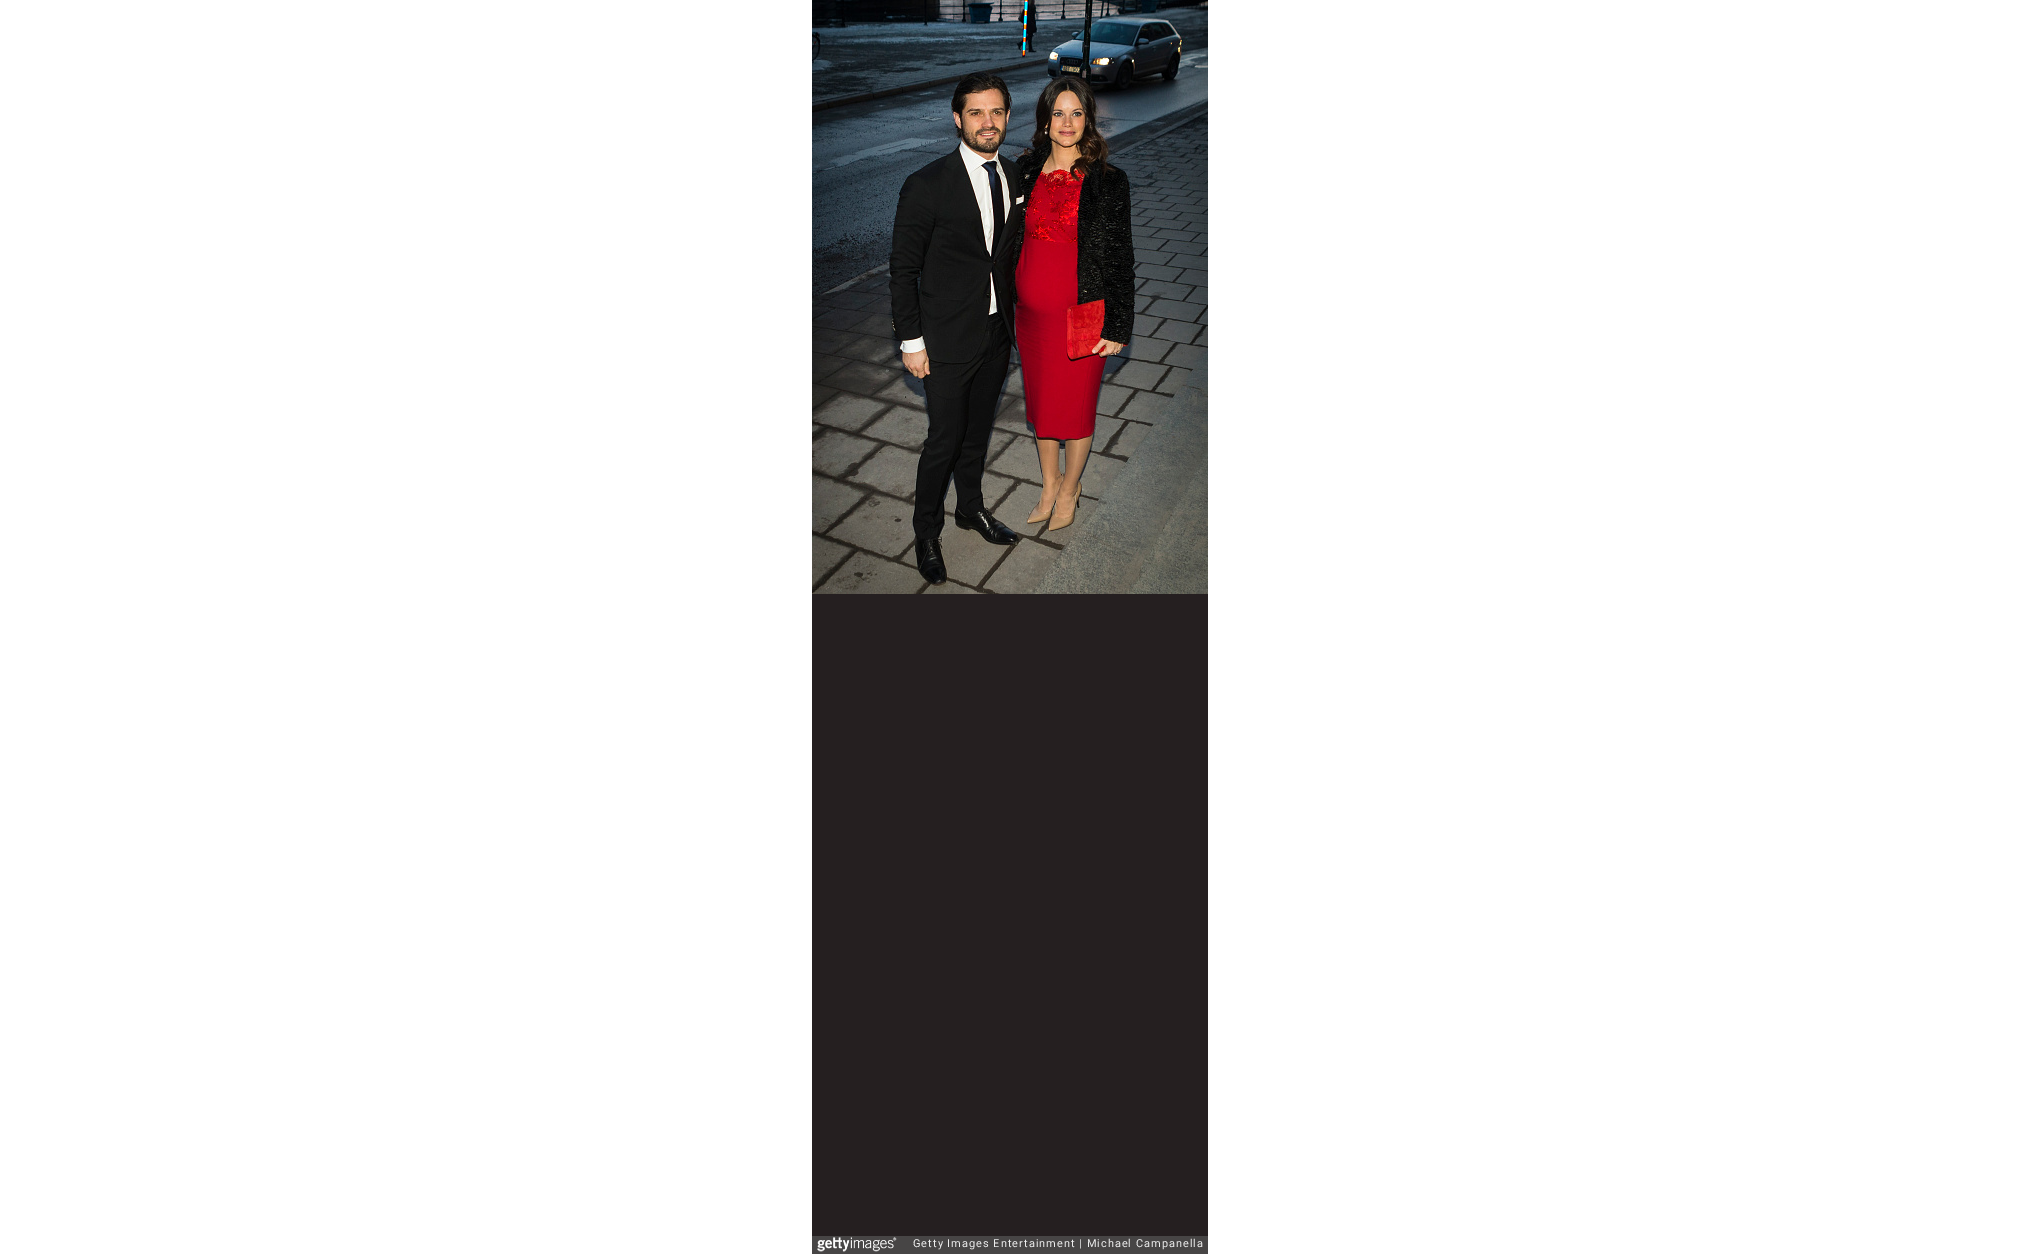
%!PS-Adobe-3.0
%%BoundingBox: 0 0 2020 1254
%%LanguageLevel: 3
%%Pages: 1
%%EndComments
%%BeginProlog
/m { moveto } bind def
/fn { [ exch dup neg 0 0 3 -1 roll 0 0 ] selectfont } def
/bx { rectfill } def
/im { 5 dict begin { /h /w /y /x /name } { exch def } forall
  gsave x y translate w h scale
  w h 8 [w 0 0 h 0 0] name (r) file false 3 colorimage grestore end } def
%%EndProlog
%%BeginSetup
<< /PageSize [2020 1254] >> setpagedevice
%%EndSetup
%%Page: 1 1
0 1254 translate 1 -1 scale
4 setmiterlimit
1 setgray
0 0 2020 1254 bx
0.145 0.122 0.125 setrgbcolor
812 594 396 642 bx
(image0.raw) 812 0 396 594 im
0.278 0.271 0.271 setrgbcolor
812 1236 396 18 bx
(image1.raw) 817 1237 80 15 im
/Roboto-Regular 11 fn
0.933 setgray
913 1247 m 1 0 (Getty Images Entertainment | Michael Campanella) ashow
showpage
%%EOF
